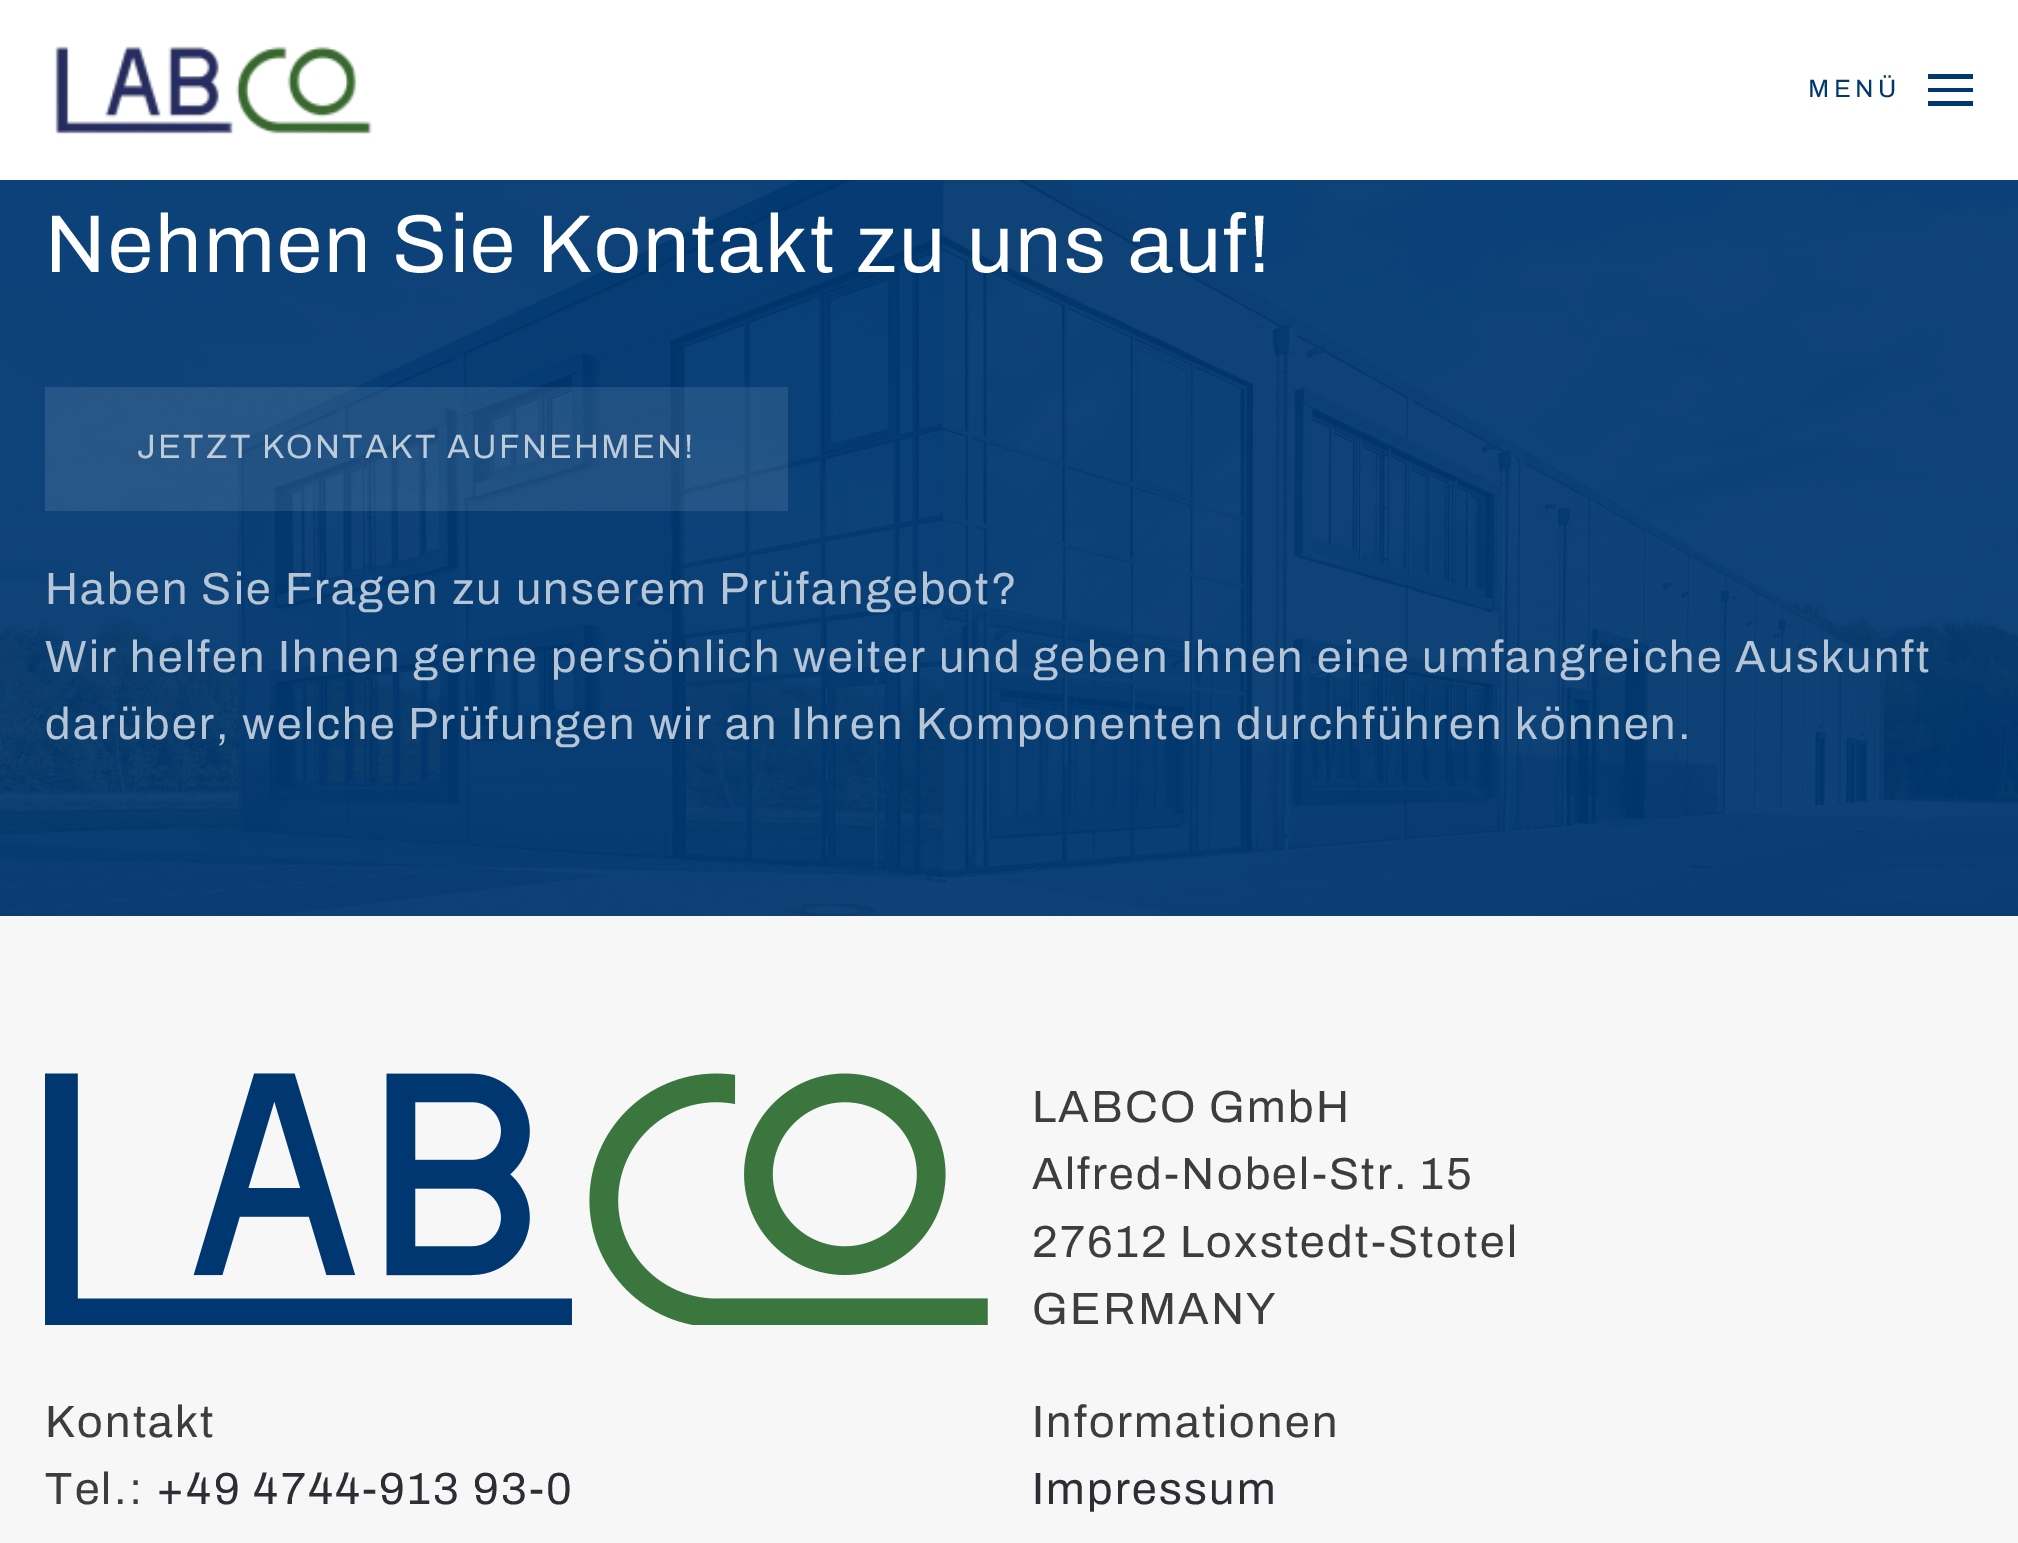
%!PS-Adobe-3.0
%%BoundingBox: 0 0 2018 1543
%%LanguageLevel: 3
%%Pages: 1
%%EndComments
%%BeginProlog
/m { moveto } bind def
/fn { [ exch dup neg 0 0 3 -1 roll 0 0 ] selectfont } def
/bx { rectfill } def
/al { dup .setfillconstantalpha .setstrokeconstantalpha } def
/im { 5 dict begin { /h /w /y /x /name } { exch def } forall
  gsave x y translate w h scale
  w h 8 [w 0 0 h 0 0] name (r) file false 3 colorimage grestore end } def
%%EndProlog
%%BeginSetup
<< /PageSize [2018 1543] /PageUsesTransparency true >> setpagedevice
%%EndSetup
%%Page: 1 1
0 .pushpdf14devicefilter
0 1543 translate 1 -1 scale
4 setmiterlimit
0.969 setgray
0 0 2018 1543 bx
1 setgray
0 0 2018 180 bx
(image0.raw) 55 46 317 88 im
/Archivo-SemiBold 25 fn
0 0.216 0.439 setrgbcolor
1808 97 m 4.5 0 (MENÜ) ashow
1928 74 45 5 bx
1928 88 45 4 bx
1928 101 45 5 bx
(image1.raw) 0 180 2018 736 im
/Archivo-SemiBold 82.25 fn
1 setgray
45 272 m 2.25 0 (Nehmen Sie Kontakt zu uns auf!) ashow
0.1 al
45 387 743 124 bx
/Archivo-SemiBold 33.75 fn
1 al
0.737 0.796 0.851 setrgbcolor
137 458 m 2.25 0 (JETZT KONTAKT AUFNEHMEN!) ashow
/Archivo-SemiBold 45 fn
0.714 0.773 0.839 setrgbcolor
45 604 m 2.25 0 (Haben Sie Fragen zu unserem Prüfangebot?) ashow
45 672 m 2.25 0 (Wir helfen Ihnen gerne persönlich weiter und geben Ihnen eine umfangreiche Auskunft) ashow
45 739 m 2.25 0 (darüber, welche Prüfungen wir an Ihren Komponenten durchführen können.) ashow
(image2.raw) 45 1073 943 252 im
0.239 setgray
1032 1122 m 2.25 0 (LABCO GmbH) ashow
1032 1189 m 2.25 0 (Alfred-Nobel-Str. 15) ashow
1032 1257 m 2.25 0 (27612 Loxstedt-Stotel) ashow
1032 1324 m 2.25 0 (GERMANY) ashow
45 1437 m 2.25 0 (Kontakt) ashow
45 1504 m 2.25 0 (Tel.:) ashow
0.176 0.18 0.2 setrgbcolor
156 1504 m 2.25 0 (+49 4744-913 93-0) ashow
0.239 setgray
1032 1437 m 2.25 0 (Informationen) ashow
0.176 0.18 0.2 setrgbcolor
1032 1504 m 2.25 0 (Impressum) ashow
.poppdf14devicefilter showpage
%%EOF
